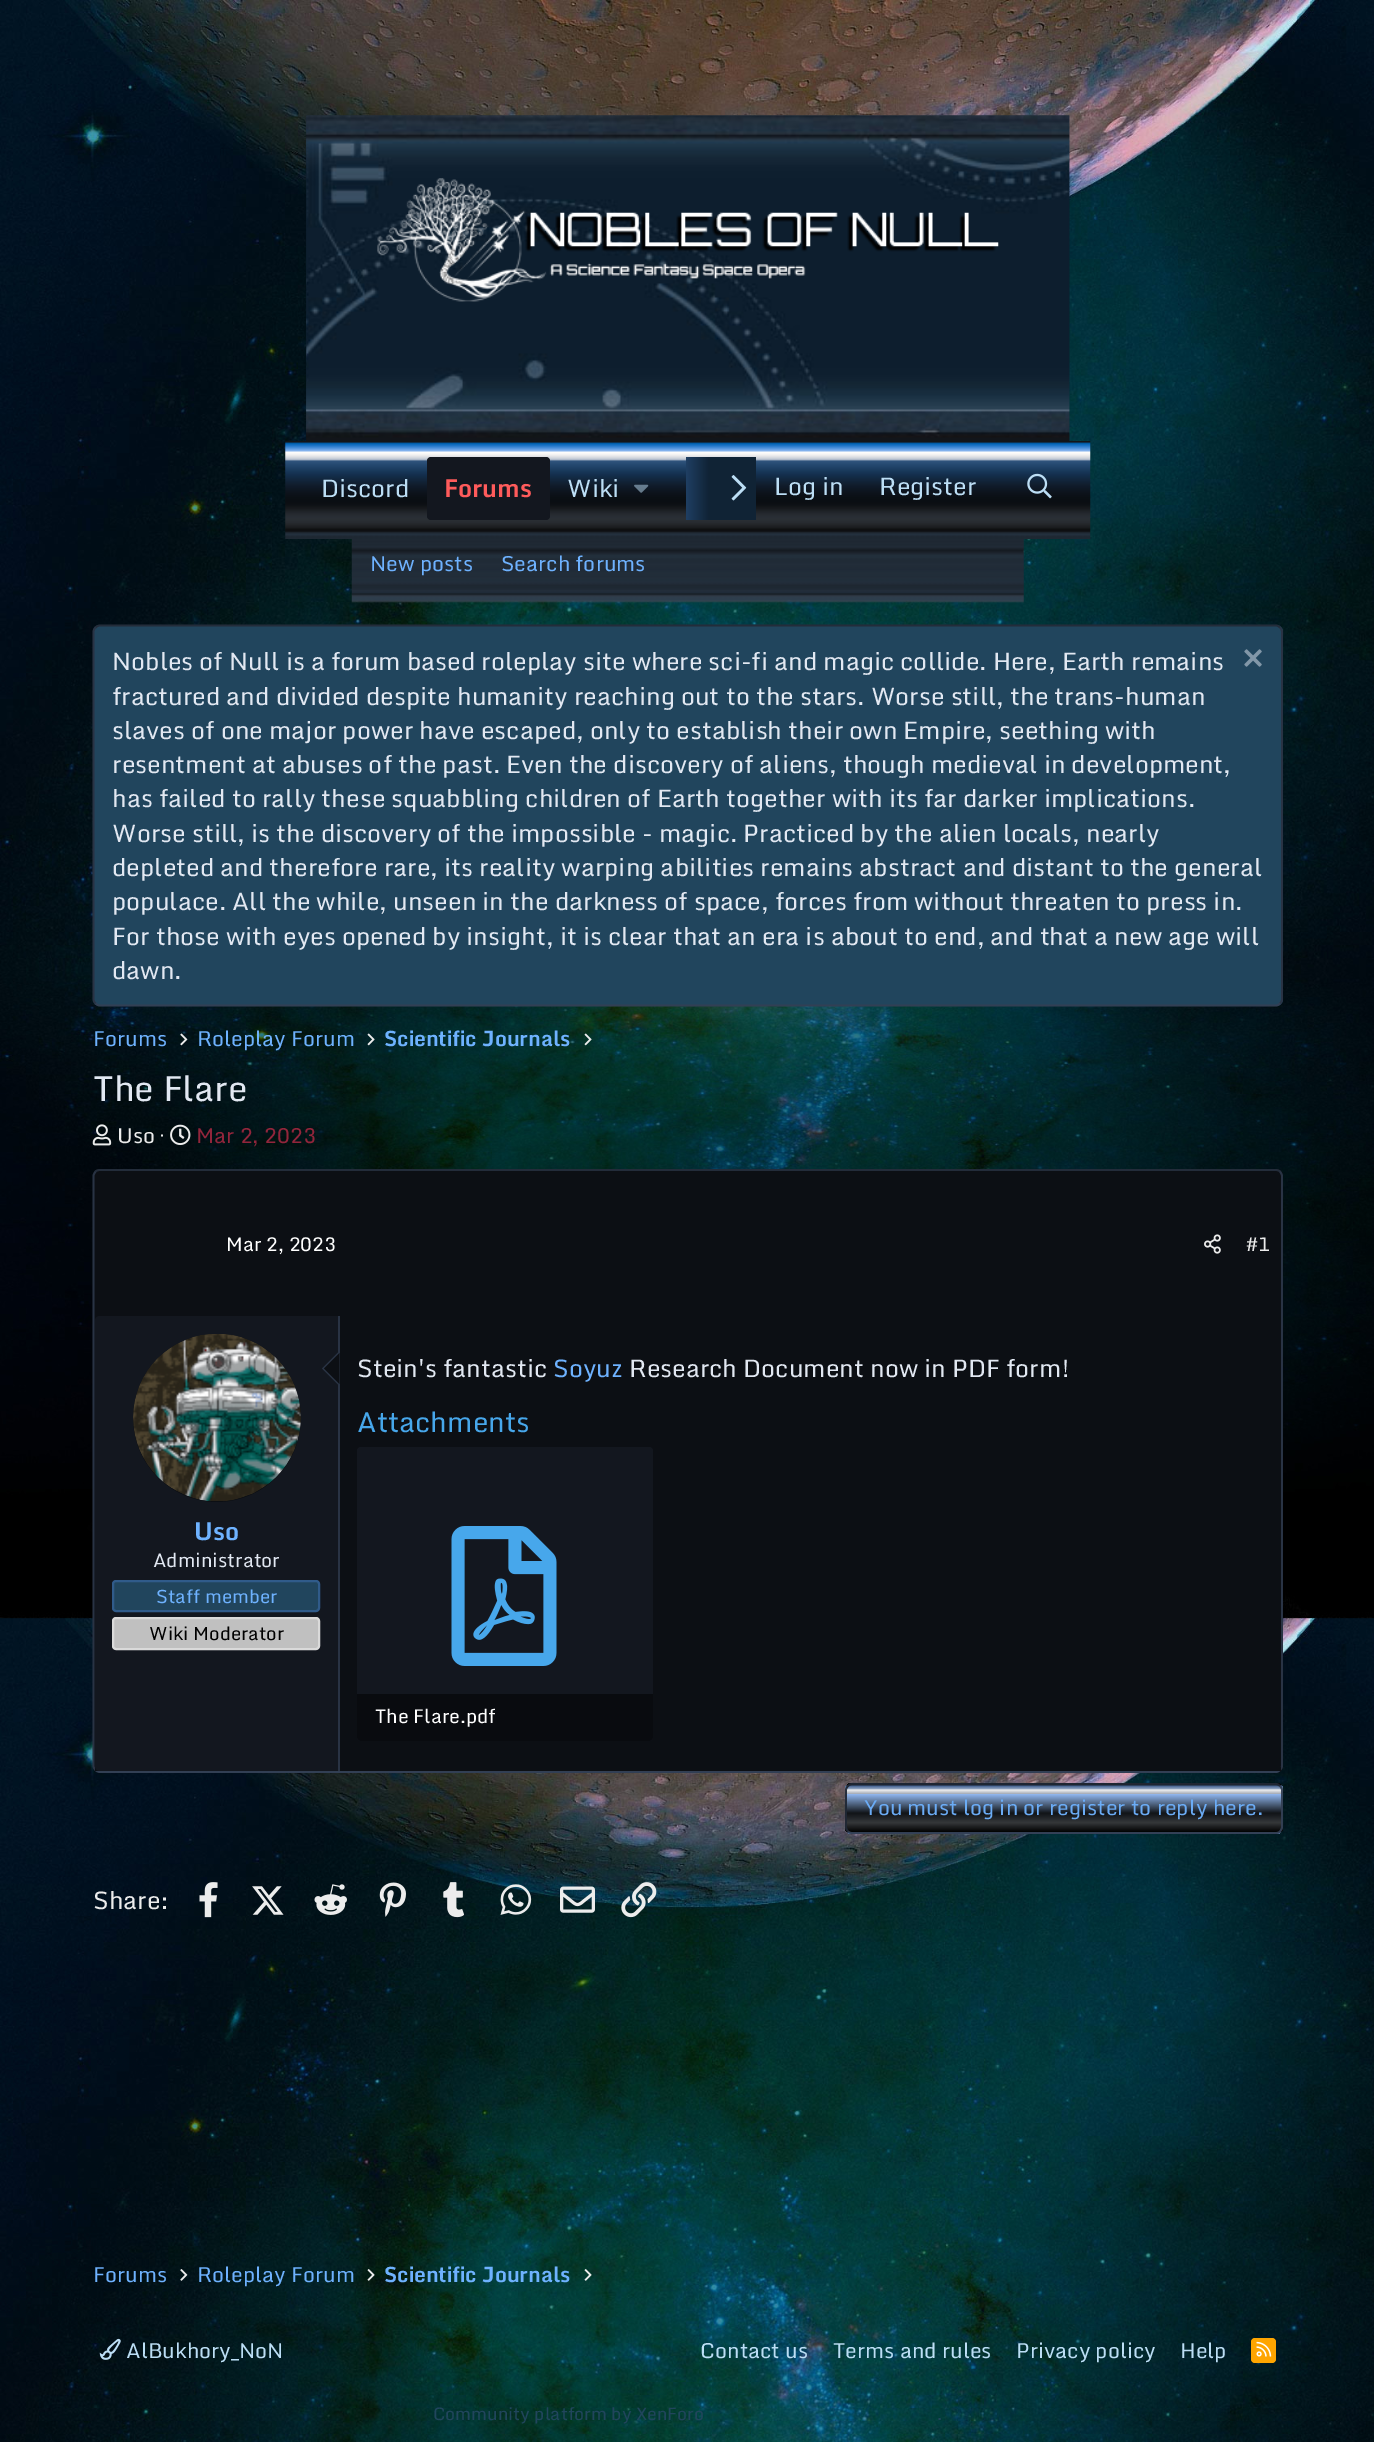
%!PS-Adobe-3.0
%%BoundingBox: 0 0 1374 2442
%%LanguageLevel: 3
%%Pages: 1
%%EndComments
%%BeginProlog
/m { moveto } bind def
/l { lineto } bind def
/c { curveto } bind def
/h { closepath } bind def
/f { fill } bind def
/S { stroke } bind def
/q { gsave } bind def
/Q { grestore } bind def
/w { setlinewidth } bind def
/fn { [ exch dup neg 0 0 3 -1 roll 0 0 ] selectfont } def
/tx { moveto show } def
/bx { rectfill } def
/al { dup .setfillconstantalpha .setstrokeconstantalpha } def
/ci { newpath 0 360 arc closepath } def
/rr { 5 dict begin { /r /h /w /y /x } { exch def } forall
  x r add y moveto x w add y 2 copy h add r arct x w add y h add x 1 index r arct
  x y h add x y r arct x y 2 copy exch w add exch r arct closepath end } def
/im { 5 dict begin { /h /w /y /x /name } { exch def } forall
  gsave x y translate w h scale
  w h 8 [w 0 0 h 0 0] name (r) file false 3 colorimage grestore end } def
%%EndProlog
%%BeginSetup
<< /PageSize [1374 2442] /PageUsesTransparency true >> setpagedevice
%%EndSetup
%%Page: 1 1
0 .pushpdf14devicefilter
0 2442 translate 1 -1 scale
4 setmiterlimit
1 setgray
0 0 1374 2442 bx
(image0.raw) 0 0 1374 2442 im
(image1.raw) 306 115 764 326 im
(image2.raw) 306 115 764 326 im
(image3.raw) 377 178 622 124 im
(image4.raw) 285 441 806 98 im
/Monda-Regular 24.5 fn
0.737 0.871 0.961 setrgbcolor
(Discord) 321 497 tx
0.075 0.09 0.122 setrgbcolor
427 457 123 63 4 rr f
/Monda-Bold 24.5 fn
1 0.357 0.357 setrgbcolor
(Forums) 444 497 tx
/Monda-Regular 24.5 fn
0.737 0.871 0.961 setrgbcolor
(Wiki) 567 497 tx
(image5.raw) 634 484 15 9 im
q 686 457 m 756 457 l 756 520 l 686 520 l h clip newpath
<< /ShadingType 2 /ColorSpace /DeviceRGB /Coords [686 488 756 488] /Extend [true true] /Function << /FunctionType 3 /Domain [0 1] /Functions [<< /FunctionType 2 /Domain [0 1] /C0 [0.122 0.247 0.392] /C1 [0.063 0.137 0.208] /N 1 >> << /FunctionType 2 /Domain [0 1] /C0 [0.063 0.137 0.208] /C1 [0.063 0.137 0.208] /N 1 >>] /Bounds [0.33] /Encode [0 1 0 1] >> >> shfill Q
(image6.raw) 731 475 16 26 im
(Log in) 774 495 tx
(Register) 879 495 tx
(image7.raw) 1027 473 25 26 im
(image8.raw) 351 539 673 64 im
/Monda-Regular 21 fn
0.431 0.698 1 setrgbcolor
(New posts) 370 571 tx
(Search forums) 501 571 tx
0.129 0.271 0.365 setrgbcolor
93 625 1190 381 7 rr f
0.137 0.173 0.227 setrgbcolor
1.8 w
95.5 627.5 m 96.5 626.5 98 625.5 100 625.5 c 1276 625.5 l 1277.5 625.5 1279 626.5 1280 627.5 c S
0.161 0.2 0.267 setrgbcolor
1280 627.5 m 1281 628.5 1282 630 1282 632 c 1282 999 l 1282 1001 1281 1002.5 1280 1003.5 c S
0.196 0.247 0.329 setrgbcolor
1280 1003.5 m 1279 1004.5 1277.5 1005.5 1276 1005.5 c 100 1005.5 l 98 1005.5 96.5 1004.5 95.5 1003.5 c S
0.161 0.2 0.267 setrgbcolor
95.5 1003.5 m 94.5 1002.5 93.5 1001 93.5 999 c 93.5 632 l 93.5 630 94.5 628.5 95.5 627.5 c S
/Monda-Regular 24.5 fn
0.886 0.91 0.949 setrgbcolor
(Nobles of Null is a forum based roleplay site where sci-fi and magic collide. Here, Earth remains) 112 670 tx
(image9.raw) 1244 649 18 18 im
(fractured and divided despite humanity reaching out to the stars. Worse still, the trans-human) 112 705 tx
(slaves of one major power have escaped, only to establish their own Empire, seething with) 112 739 tx
(resentment at abuses of the past. Even the discovery of aliens, though medieval in development,) 112 773 tx
(has failed to rally these squabbling children of Earth together with its far darker implications.) 112 807 tx
(Worse still, is the discovery of the impossible - magic. Practiced by the alien locals, nearly) 112 842 tx
(depleted and therefore rare, its reality warping abilities remains abstract and distant to the general) 112 876 tx
(populace. All the while, unseen in the darkness of space, forces from without threaten to press in.) 112 910 tx
(For those with eyes opened by insight, it is clear that an era is about to end, and that a new age will) 112 945 tx
(dawn.) 112 979 tx
/Monda-Regular 21 fn
0.431 0.698 1 setrgbcolor
(Forums) 93 1046 tx
(image10.raw) 180 1033 8 13 im
(Roleplay Forum) 197 1046 tx
(image11.raw) 367 1033 8 13 im
/Monda-Bold 21 fn
(Scientific Journals) 384 1046 tx
(image12.raw) 584 1033 8 13 im
/Monda-Regular 35 fn
0.886 0.91 0.949 setrgbcolor
(The Flare) 93 1101 tx
(image13.raw) 92 1124 20 22 im
/Monda-Regular 21 fn
0.925 setgray
(Uso ·) 117 1143 tx
(image14.raw) 170 1124 21 21 im
0.573 0.145 0.231 setrgbcolor
(Mar 2, 2023) 196 1143 tx
0.047 0.059 0.078 setrgbcolor
93 1169 1190 604 7 rr f
0.137 0.173 0.227 setrgbcolor
95.5 1171.5 m 96.5 1170.5 98 1170 100 1170 c 1276 1170 l 1277.5 1170 1279 1170.5 1280 1171.5 c S
0.161 0.2 0.267 setrgbcolor
1280 1171.5 m 1281 1173 1282 1174.5 1282 1176 c 1282 1766 l 1282 1767.5 1281 1769 1280 1770 c S
0.196 0.247 0.329 setrgbcolor
1280 1770 m 1279 1771 1277.5 1772 1276 1772 c 100 1772 l 98 1772 96.5 1771 95.5 1770 c S
0.161 0.2 0.267 setrgbcolor
95.5 1770 m 94.5 1769 93.5 1767.5 93.5 1766 c 93.5 1176 l 93.5 1174.5 94.5 1173 95.5 1171.5 c S
0.047 0.059 0.078 setrgbcolor
95 1767 1186 4 bx
0.075 0.09 0.122 setrgbcolor
100 1316 m 340 1316 l 340 1771 l 100 1771 l 97 1771 95 1769 95 1766 c 95 1321 l 95 1318 97 1316 100 1316 c h f
0.161 0.2 0.267 setrgbcolor
338 1316 2 455 bx
0.047 0.059 0.078 setrgbcolor
217 1418 84 ci f
(image15.raw) 133 1334 168 167 im
0.161 0.2 0.267 setrgbcolor
339.5 1351 m 339.5 1386 l 322 1368.5 l h f
0.047 0.059 0.078 setrgbcolor
339.5 1353 m 339.5 1384 l 324 1368.5 l h f
/Monda-Bold 24.5 fn
0.431 0.698 1 setrgbcolor
(Uso) 194 1540 tx
/Monda-Regular 19.25 fn
0.886 0.91 0.949 setrgbcolor
(Administrator) 153 1567 tx
0.129 0.271 0.365 setrgbcolor
113 1581 206 30 3 rr q f Q
0.188 0.357 0.541 setrgbcolor
2 w
S
/Monda-Regular 18.5 fn
0.431 0.698 1 setrgbcolor
(Staff member) 156 1603 tx
0.753 setgray
113 1618 206 31 3 rr q f Q
0.855 setgray
S
0 setgray
(Wiki Moderator) 149 1640 tx
/Monda-Regular 19.25 fn
1 setgray
(Mar 2, 2023) 226 1251 tx
(image16.raw) 1204 1234 17 20 im
0.925 setgray
(#1) 1246 1251 tx
/Monda-Regular 24.5 fn
0.886 0.91 0.949 setrgbcolor
(Stein's fantastic) 357 1377 tx
0.431 0.698 1 setrgbcolor
(Soyuz) 553 1377 tx
0.886 0.91 0.949 setrgbcolor
(Research Document now in PDF form!) 629 1377 tx
/Monda-Regular 28 fn
0.278 0.655 0.922 setrgbcolor
(Attachments) 357 1432 tx
0.075 0.09 0.122 setrgbcolor
357 1447 296 294 4 rr f
(image17.raw) 451 1526 106 140 im
0.5 al
0 setgray
357 1694 m 653 1694 l 653 1737 l 653 1739 651 1741 649 1741 c 361 1741 l 359 1741 357 1739 357 1737 c h f
/Monda-Regular 19.25 fn
1 al
1 setgray
(The Flare.pdf) 375 1723 tx
0.95 al
0.047 0.059 0.078 setrgbcolor
845 1783 438 51 7 rr f
q
845 1783 438 51 7 rr clip newpath
q 845 1783 m 1283 1783 l 1283 1785 l 845 1785 l h clip newpath
<< /ShadingType 2 /ColorSpace /DeviceRGB /Coords [1064 1785 1064 1738] /Extend [true true] /Function << /FunctionType 3 /Domain [0 1] /Functions [<< /FunctionType 2 /Domain [0 1] /C0 [0 0 0] /C1 [0.216 0.224 0.235] /N 1 >> << /FunctionType 2 /Domain [0 1] /C0 [0.216 0.224 0.235] /C1 [0.063 0.075 0.09] /N 1 >> << /FunctionType 2 /Domain [0 1] /C0 [0.063 0.075 0.09] /C1 [0.588 0.741 0.969] /N 1 >> << /FunctionType 2 /Domain [0 1] /C0 [0.588 0.741 0.969] /C1 [0.667 0.694 0.737] /N 1 >> << /FunctionType 2 /Domain [0 1] /C0 [0.667 0.694 0.737] /C1 [0.996 0.996 0.996] /N 1 >> << /FunctionType 2 /Domain [0 1] /C0 [0.996 0.996 0.996] /C1 [0.631 0.706 0.816] /N 1 >> << /FunctionType 2 /Domain [0 1] /C0 [0.631 0.706 0.816] /C1 [0.227 0.361 0.565] /N 1 >> << /FunctionType 2 /Domain [0 1] /C0 [0.227 0.361 0.565] /C1 [0.188 0.263 0.376] /N 1 >>] /Bounds [0.2 0.4 0.8 0.81 0.9 0.91 0.99] /Encode [0 1 0 1 0 1 0 1 0 1 0 1 0 1 0 1] >> >> shfill Q
q 845 1785 m 1283 1785 l 1283 1832 l 845 1832 l h clip newpath
<< /ShadingType 2 /ColorSpace /DeviceRGB /Coords [1064 1832 1064 1785] /Extend [true true] /Function << /FunctionType 3 /Domain [0 1] /Functions [<< /FunctionType 2 /Domain [0 1] /C0 [0 0 0] /C1 [0.216 0.224 0.235] /N 1 >> << /FunctionType 2 /Domain [0 1] /C0 [0.216 0.224 0.235] /C1 [0.063 0.075 0.09] /N 1 >> << /FunctionType 2 /Domain [0 1] /C0 [0.063 0.075 0.09] /C1 [0.588 0.741 0.969] /N 1 >> << /FunctionType 2 /Domain [0 1] /C0 [0.588 0.741 0.969] /C1 [0.667 0.694 0.737] /N 1 >> << /FunctionType 2 /Domain [0 1] /C0 [0.667 0.694 0.737] /C1 [0.996 0.996 0.996] /N 1 >> << /FunctionType 2 /Domain [0 1] /C0 [0.996 0.996 0.996] /C1 [0.631 0.706 0.816] /N 1 >> << /FunctionType 2 /Domain [0 1] /C0 [0.631 0.706 0.816] /C1 [0.227 0.361 0.565] /N 1 >> << /FunctionType 2 /Domain [0 1] /C0 [0.227 0.361 0.565] /C1 [0.188 0.263 0.376] /N 1 >>] /Bounds [0.2 0.4 0.8 0.81 0.9 0.91 0.99] /Encode [0 1 0 1 0 1 0 1 0 1 0 1 0 1 0 1] >> >> shfill Q
q 845 1832 m 1283 1832 l 1283 1834 l 845 1834 l h clip newpath
<< /ShadingType 2 /ColorSpace /DeviceRGB /Coords [1064 1880 1064 1832] /Extend [true true] /Function << /FunctionType 3 /Domain [0 1] /Functions [<< /FunctionType 2 /Domain [0 1] /C0 [0 0 0] /C1 [0.216 0.224 0.235] /N 1 >> << /FunctionType 2 /Domain [0 1] /C0 [0.216 0.224 0.235] /C1 [0.063 0.075 0.09] /N 1 >> << /FunctionType 2 /Domain [0 1] /C0 [0.063 0.075 0.09] /C1 [0.588 0.741 0.969] /N 1 >> << /FunctionType 2 /Domain [0 1] /C0 [0.588 0.741 0.969] /C1 [0.667 0.694 0.737] /N 1 >> << /FunctionType 2 /Domain [0 1] /C0 [0.667 0.694 0.737] /C1 [0.996 0.996 0.996] /N 1 >> << /FunctionType 2 /Domain [0 1] /C0 [0.996 0.996 0.996] /C1 [0.631 0.706 0.816] /N 1 >> << /FunctionType 2 /Domain [0 1] /C0 [0.631 0.706 0.816] /C1 [0.227 0.361 0.565] /N 1 >> << /FunctionType 2 /Domain [0 1] /C0 [0.227 0.361 0.565] /C1 [0.188 0.263 0.376] /N 1 >>] /Bounds [0.2 0.4 0.8 0.81 0.9 0.91 0.99] /Encode [0 1 0 1 0 1 0 1 0 1 0 1 0 1 0 1] >> >> shfill Q
Q
0.196 0.247 0.329 setrgbcolor
1.8 w
1280 1786 m 1281 1787 1282 1788.5 1282 1790 c 1282 1827 l 1282 1828.5 1281 1830 1280 1831.5 c 1279 1832.5 1277.5 1833 1276 1833 c 852 1833 l 850.5 1833 849 1832.5 848 1831.5 c S
0.122 0.153 0.204 setrgbcolor
848 1831.5 m 847 1830 846 1828.5 846 1827 c 846 1790 l 846 1788.5 847 1787 848 1786 c 849 1785 850.5 1784 852 1784 c 1276 1784 l 1277.5 1784 1279 1785 1280 1786 c S
/Monda-Regular 21 fn
1 al
0.42 0.675 0.965 setrgbcolor
(You must log in or register to reply here.) 864 1815 tx
/Monda-Regular 24.5 fn
0.925 setgray
(Share:) 93 1909 tx
(image18.raw) 199 1882 19 36 im
(image19.raw) 252 1886 32 29 im
(image20.raw) 314 1884 33 31 im
(image21.raw) 379 1882 27 35 im
(image22.raw) 443 1882 21 36 im
(image23.raw) 500 1884 32 31 im
(image24.raw) 560 1886 35 27 im
(image25.raw) 621 1882 36 36 im
/Monda-Regular 21 fn
0.431 0.698 1 setrgbcolor
(Forums) 93 2282 tx
(image26.raw) 180 2269 8 12 im
(Roleplay Forum) 197 2282 tx
(image27.raw) 367 2269 8 12 im
/Monda-Bold 21 fn
(Scientific Journals) 384 2282 tx
(image28.raw) 584 2269 8 12 im
(image29.raw) 99 2338 22 22 im
/Monda-Regular 21 fn
0.737 0.871 0.961 setrgbcolor
(AlBukhory_NoN) 126 2358 tx
(Contact us) 700 2358 tx
(Terms and rules) 833 2358 tx
(Privacy policy) 1016 2358 tx
(Help) 1180 2358 tx
1 0.647 0 setrgbcolor
1251 2338 25 25 4 rr f
(image30.raw) 1256 2341 16 16 im
/Monda-Regular 17.5 fn
0.129 0.271 0.365 setrgbcolor
(Community platform by XenForo) 433 2420 tx
(.) 937 2420 tx
.poppdf14devicefilter showpage
%%EOF
